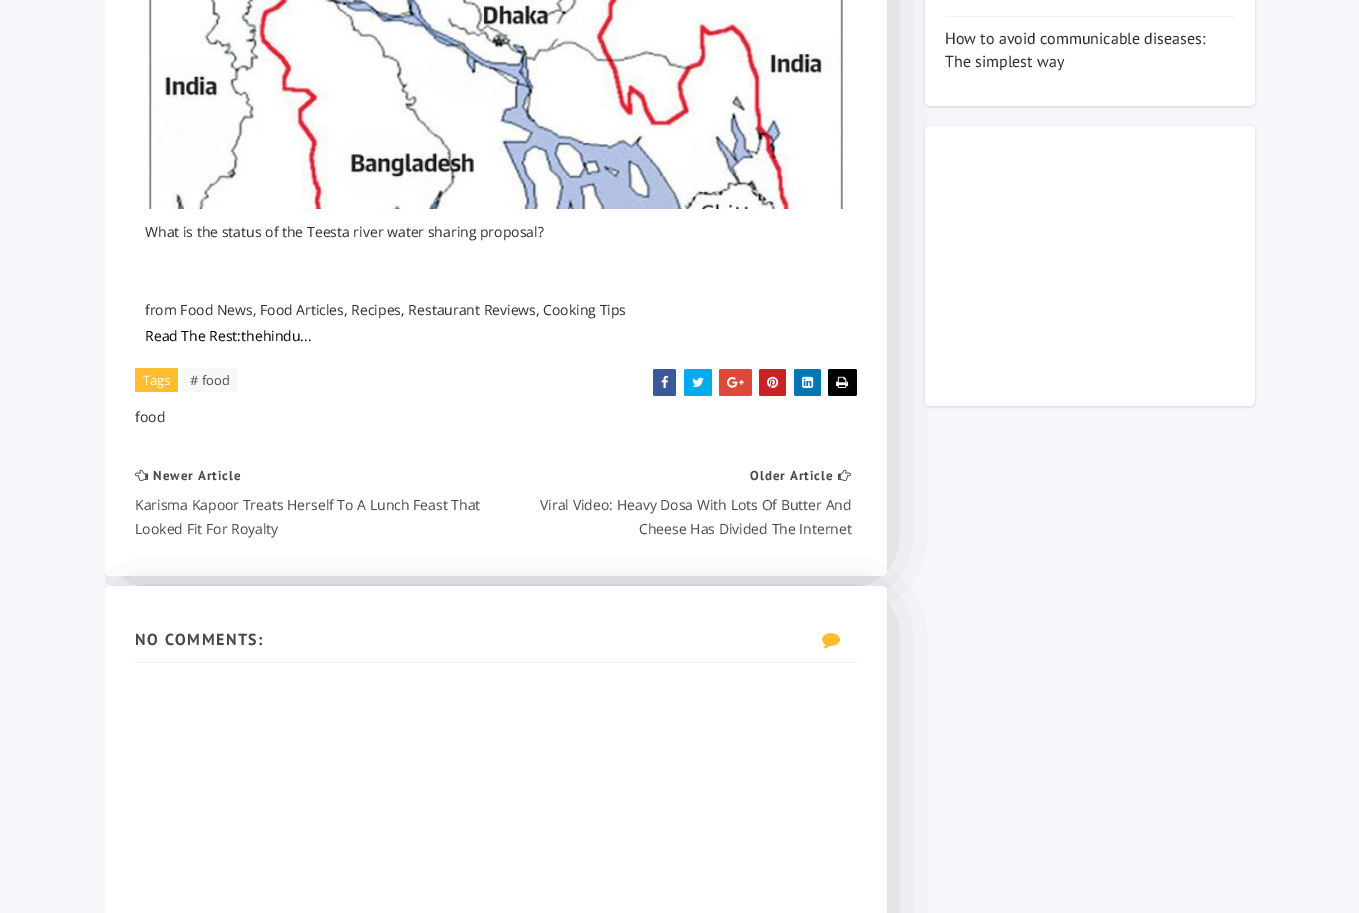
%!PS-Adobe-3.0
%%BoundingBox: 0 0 1359 913
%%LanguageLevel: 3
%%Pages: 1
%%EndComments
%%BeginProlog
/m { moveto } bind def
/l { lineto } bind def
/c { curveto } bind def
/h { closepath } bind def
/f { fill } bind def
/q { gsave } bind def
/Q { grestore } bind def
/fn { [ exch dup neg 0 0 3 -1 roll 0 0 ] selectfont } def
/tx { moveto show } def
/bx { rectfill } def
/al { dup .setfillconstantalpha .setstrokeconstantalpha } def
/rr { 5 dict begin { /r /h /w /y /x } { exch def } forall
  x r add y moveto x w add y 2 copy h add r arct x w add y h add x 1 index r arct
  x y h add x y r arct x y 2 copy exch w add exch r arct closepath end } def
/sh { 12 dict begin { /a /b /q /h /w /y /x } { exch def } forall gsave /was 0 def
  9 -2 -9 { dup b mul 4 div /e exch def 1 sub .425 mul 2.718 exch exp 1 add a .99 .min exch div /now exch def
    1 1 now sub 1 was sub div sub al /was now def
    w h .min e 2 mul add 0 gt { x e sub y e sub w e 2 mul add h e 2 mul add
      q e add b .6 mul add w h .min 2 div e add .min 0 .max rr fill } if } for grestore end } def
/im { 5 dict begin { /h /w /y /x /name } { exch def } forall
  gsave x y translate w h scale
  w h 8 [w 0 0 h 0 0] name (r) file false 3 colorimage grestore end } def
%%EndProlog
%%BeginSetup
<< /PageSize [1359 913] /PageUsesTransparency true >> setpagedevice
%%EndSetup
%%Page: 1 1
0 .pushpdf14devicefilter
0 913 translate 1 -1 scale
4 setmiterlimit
0.965 0.969 0.984 setrgbcolor
0 0 1359 913 bx
q
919 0 m 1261 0 l 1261 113 l 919 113 l h 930 -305 m 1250 -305 l 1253 -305 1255 -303 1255 -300 c 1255 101 l 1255 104 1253 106 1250 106 c 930 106 l 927 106 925 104 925 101 c 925 -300 l 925 -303 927 -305 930 -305 c h eoclip newpath
0 setgray
925 -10 330 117 5 1.5 0.13 sh
Q
q
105 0 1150 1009 rectclip
0 setgray
137 -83 728 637 0 27.5 0.5 sh
Q
1 setgray
925 -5 330 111 5 rr f
0.949 setgray
945 16 290 1 bx
/PTSans-Regular 16 fn
0.18 setgray
(How to avoid communicable diseases:) 945 44 tx
(The simplest way) 945 67 tx
q
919 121 m 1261 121 l 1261 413 l 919 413 l h 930 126 m 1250 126 l 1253 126 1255 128 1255 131 c 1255 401 l 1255 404 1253 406 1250 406 c 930 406 l 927 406 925 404 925 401 c 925 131 l 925 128 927 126 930 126 c h eoclip newpath
0 setgray
925 127 330 280 5 1.5 0.13 sh
Q
1 setgray
925 126 330 280 5 rr f
105 -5 782 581 5 rr f
(image0.raw) 148 0 696 209 im
/OpenSans-Regular 14 fn
0.18 setgray
(What is the status of the Teesta river water sharing proposal?) 145 237 tx
(from Food News, Food Articles, Recipes, Restaurant Reviews, Cooking Tips) 145 315 tx
0 setgray
(Read The Rest:thehindu...) 145 341 tx
1 0.741 0.184 setrgbcolor
135 368 43 24 bx
/OpenSans-Regular 13 fn
1 setgray
(Tags) 143 385 tx
0.973 setgray
182 368 56 24 bx
0.282 0.286 0.302 setrgbcolor
(# food) 190 385 tx
0.231 0.349 0.596 setrgbcolor
653 369 23 27 2 rr f
(image1.raw) 661 375 7 13 im
0 0.675 0.933 setrgbcolor
684 369 28 27 2 rr f
(image2.raw) 692 377 12 10 im
0.859 0.29 0.224 setrgbcolor
719 369 33 27 2 rr f
(image3.raw) 727 377 17 11 im
0.792 0.129 0.153 setrgbcolor
759 369 27 27 2 rr f
(image4.raw) 767 376 12 12 im
0 0.467 0.71 setrgbcolor
794 369 27 27 2 rr f
(image5.raw) 802 376 12 12 im
0.004 setgray
828 369 29 27 2 rr f
(image6.raw) 836 376 13 12 im
/OpenSans-Regular 14 fn
0.18 setgray
(food) 135 422 tx
(image7.raw) 135 469 13 12 im
/PTSans-Bold 13 fn
0.282 0.286 0.302 setrgbcolor
153 480 m 1 0 (Newer Article) ashow
/OpenSans-Regular 14 fn
(Karisma Kapoor Treats Herself To A Lunch Feast That) 135 510 tx
(Looked Fit For Royalty) 135 534 tx
/PTSans-Bold 13 fn
750 480 m 1 0 (Older Article) ashow
(image8.raw) 838 469 13 12 im
/OpenSans-Regular 14 fn
(Viral Video: Heavy Dosa With Lots Of Butter And) 540 510 tx
(Cheese Has Divided The Internet) 639 534 tx
q
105 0 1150 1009 rectclip
0 setgray
137 618 728 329 0 27.5 0.5 sh
Q
1 setgray
105 586 782 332 5 rr f
0.937 setgray
135 662 722 1 bx
/PTSans-Bold 16 fn
0.282 0.286 0.302 setrgbcolor
135 645 m 1.5 0 (NO COMMENTS:) ashow
(image9.raw) 822 633 18 16 im
.poppdf14devicefilter showpage
%%EOF
